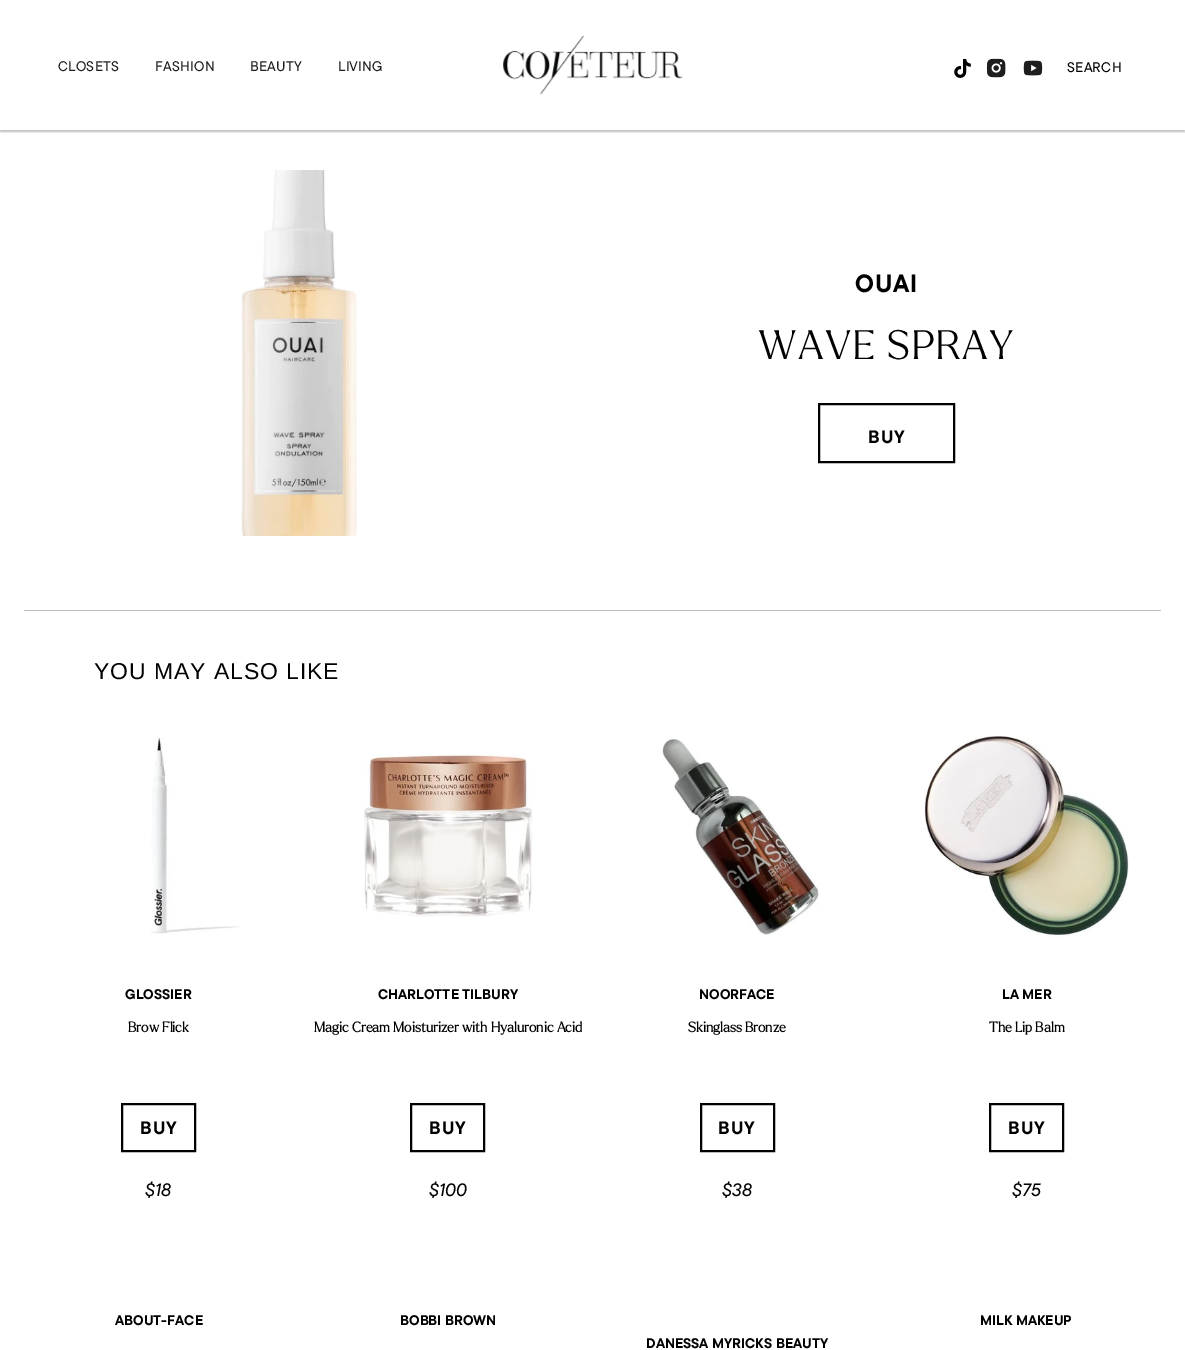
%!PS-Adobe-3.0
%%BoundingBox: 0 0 1185 1350
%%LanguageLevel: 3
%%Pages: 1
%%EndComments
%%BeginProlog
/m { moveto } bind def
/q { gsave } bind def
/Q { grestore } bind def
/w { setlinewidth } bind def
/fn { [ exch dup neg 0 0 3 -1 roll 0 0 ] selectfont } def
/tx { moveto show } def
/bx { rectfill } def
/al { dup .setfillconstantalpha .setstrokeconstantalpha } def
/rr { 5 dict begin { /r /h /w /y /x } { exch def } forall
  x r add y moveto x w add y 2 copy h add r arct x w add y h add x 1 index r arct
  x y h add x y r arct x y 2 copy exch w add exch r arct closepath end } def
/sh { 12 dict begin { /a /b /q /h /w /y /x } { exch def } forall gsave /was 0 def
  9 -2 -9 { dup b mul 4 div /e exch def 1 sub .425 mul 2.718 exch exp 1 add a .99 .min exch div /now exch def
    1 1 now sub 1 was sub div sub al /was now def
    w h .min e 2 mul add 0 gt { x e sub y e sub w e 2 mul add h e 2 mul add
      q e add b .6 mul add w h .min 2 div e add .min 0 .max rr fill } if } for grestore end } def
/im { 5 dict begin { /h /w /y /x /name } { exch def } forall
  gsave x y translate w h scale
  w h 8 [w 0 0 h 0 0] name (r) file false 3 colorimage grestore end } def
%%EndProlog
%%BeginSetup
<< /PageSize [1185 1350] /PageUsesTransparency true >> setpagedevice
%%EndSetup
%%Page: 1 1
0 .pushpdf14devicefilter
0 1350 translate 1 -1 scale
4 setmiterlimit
1 setgray
0 0 1185 1350 bx
q
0 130 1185 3 rectclip
0 setgray
0 2 1185 130 0 1 0.25 sh
Q
/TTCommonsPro-Medium 14 fn
0.118 setgray
58 71 m 0.25 0 (CLOSETS) ashow
155 71 m 0.25 0 (FASHION) ashow
250 71 m 0.25 0 (BEAUTY) ashow
338 71 m 0.25 0 (LIVING) ashow
(image0.raw) 503 36 180 59 im
(image1.raw) 954 59 17 19 im
(image2.raw) 986 58 20 20 im
(image3.raw) 1023 60 20 16 im
0 setgray
1067 72 m 0.25 0 (SEARCH) ashow
0.745 setgray
24 610 1137 1 bx
(image4.raw) 241 170 116 366 im
/TTCommonsPro-Bold 25 fn
0 setgray
855 292 m 1 0 (OUAI) ashow
/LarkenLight-Light 40 fn
758 359 m 1.6 0 (WAVE SPRAY) ashow
2 w
819 404 135 58 rectstroke
/TTCommonsPro-Bold 18 fn
868 443 m 1 0 (BUY) ashow
/LiberationSans-Regular 23 fn
94 679 m 0.9 0 (YOU MAY ALSO LIKE) ashow
(image5.raw) 151 737 89 197 im
/TTCommonsPro-Bold 14 fn
(GLOSSIER) 125 999 tx
/LarkenLight-Bold 14 fn
(Brow Flick) 128 1032 tx
122 1104 73 47 rectstroke
/TTCommonsPro-Bold 18 fn
140 1134 m 1 0 (BUY) ashow
/TTCommonsPro-MediumItalic 18 fn
($18) 145 1196 tx
(image6.raw) 364 754 169 163 im
/TTCommonsPro-Bold 14 fn
(CHARLOTTE TILBURY) 378 999 tx
/LarkenLight-Bold 14 fn
(Magic Cream Moisturizer with Hyaluronic Acid) 314 1032 tx
411 1104 73 47 rectstroke
/TTCommonsPro-Bold 18 fn
429 1134 m 1 0 (BUY) ashow
/TTCommonsPro-MediumItalic 18 fn
($100) 429 1196 tx
(image7.raw) 662 739 158 196 im
/TTCommonsPro-Bold 14 fn
(NOORFACE) 699 999 tx
/LarkenLight-Bold 14 fn
(Skinglass Bronze) 688 1032 tx
701 1104 73 47 rectstroke
/TTCommonsPro-Bold 18 fn
718 1134 m 1 0 (BUY) ashow
/TTCommonsPro-MediumItalic 18 fn
($38) 722 1196 tx
(image8.raw) 924 736 205 201 im
/TTCommonsPro-Bold 14 fn
(LA MER) 1002 999 tx
/LarkenLight-Bold 14 fn
(The Lip Balm) 989 1032 tx
990 1104 73 47 rectstroke
/TTCommonsPro-Bold 18 fn
1008 1134 m 1 0 (BUY) ashow
/TTCommonsPro-MediumItalic 18 fn
($75) 1012 1196 tx
/TTCommonsPro-Bold 14 fn
(ABOUT-FACE) 115 1325 tx
(BOBBI BROWN) 400 1325 tx
(MILK MAKEUP) 980 1325 tx
(DANESSA MYRICKS BEAUTY) 646 1348 tx
.poppdf14devicefilter showpage
%%EOF
